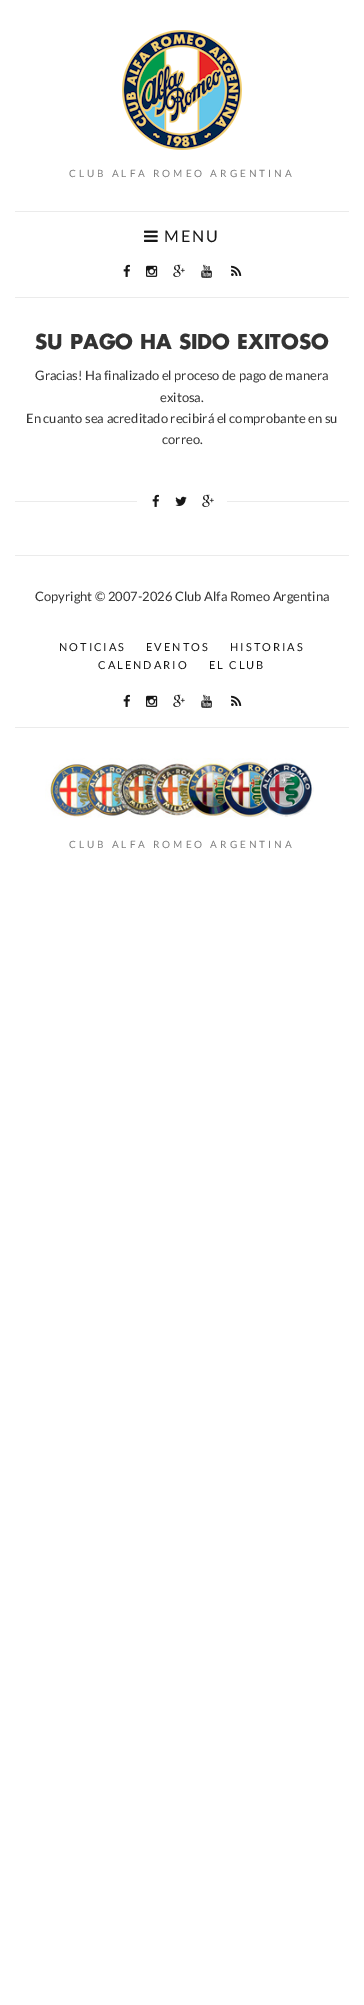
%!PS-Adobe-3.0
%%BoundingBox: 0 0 364 2005
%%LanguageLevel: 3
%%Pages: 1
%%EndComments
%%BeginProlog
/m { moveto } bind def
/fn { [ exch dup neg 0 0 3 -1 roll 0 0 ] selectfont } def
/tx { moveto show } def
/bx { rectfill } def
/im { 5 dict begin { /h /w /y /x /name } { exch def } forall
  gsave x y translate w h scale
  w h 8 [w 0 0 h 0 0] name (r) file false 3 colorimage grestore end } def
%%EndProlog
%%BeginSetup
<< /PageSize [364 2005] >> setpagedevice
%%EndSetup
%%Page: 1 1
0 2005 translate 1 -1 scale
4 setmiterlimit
1 setgray
0 0 364 2005 bx
(image0.raw) 122 30 120 120 im
/Lato-Regular 10 fn
0.494 setgray
69 177 m 3 0 (CLUB ALFA ROMEO ARGENTINA) ashow
0.922 setgray
15 211 334 1 bx
15 297 334 1 bx
(image1.raw) 144 230 14 12 im
/Lato-Regular 16 fn
0.086 setgray
164 242 m 2 0 (MENU) ashow
(image2.raw) 123 264 7 13 im
(image3.raw) 146 265 12 12 im
(image4.raw) 173 264 12 13 im
(image5.raw) 201 264 11 14 im
(image6.raw) 231 265 11 11 im
/Futura-Bold 20 fn
0.2 setgray
(SU PAGO HA SIDO EXITOSO) 35 349 tx
/Lato-Regular 13 fn
(Gracias! Ha finalizado el proceso de pago de manera) 35 380 tx
(exitosa.) 160 402 tx
(En cuanto sea acreditado recibirá el comprobante en su) 26 423 tx
(correo.) 162 444 tx
0.922 setgray
15 501 334 1 bx
1 setgray
137 501 90 1 bx
(image2.raw) 152 494 7 13 im
(image7.raw) 175 496 12 10 im
(image4.raw) 202 494 12 13 im
0.922 setgray
15 555 334 1 bx
0.2 setgray
(Copyright © 2007-2026 Club Alfa Romeo Argentina) 35 601 tx
0.922 setgray
15 727 334 1 bx
/Lato-Regular 11 fn
0.086 setgray
59 651 m 2 0 (NOTICIAS) ashow
146 651 m 2 0 (EVENTOS) ashow
230 651 m 2 0 (HISTORIAS) ashow
98 669 m 2 0 (CALENDARIO) ashow
209 669 m 2 0 (EL CLUB) ashow
(image2.raw) 123 694 7 13 im
(image3.raw) 146 695 12 12 im
(image4.raw) 173 694 12 13 im
(image5.raw) 201 694 11 14 im
(image6.raw) 231 695 11 11 im
(image8.raw) 45 758 269 60 im
/Lato-Regular 10 fn
0.494 setgray
69 848 m 3 0 (CLUB ALFA ROMEO ARGENTINA) ashow
showpage
%%EOF
